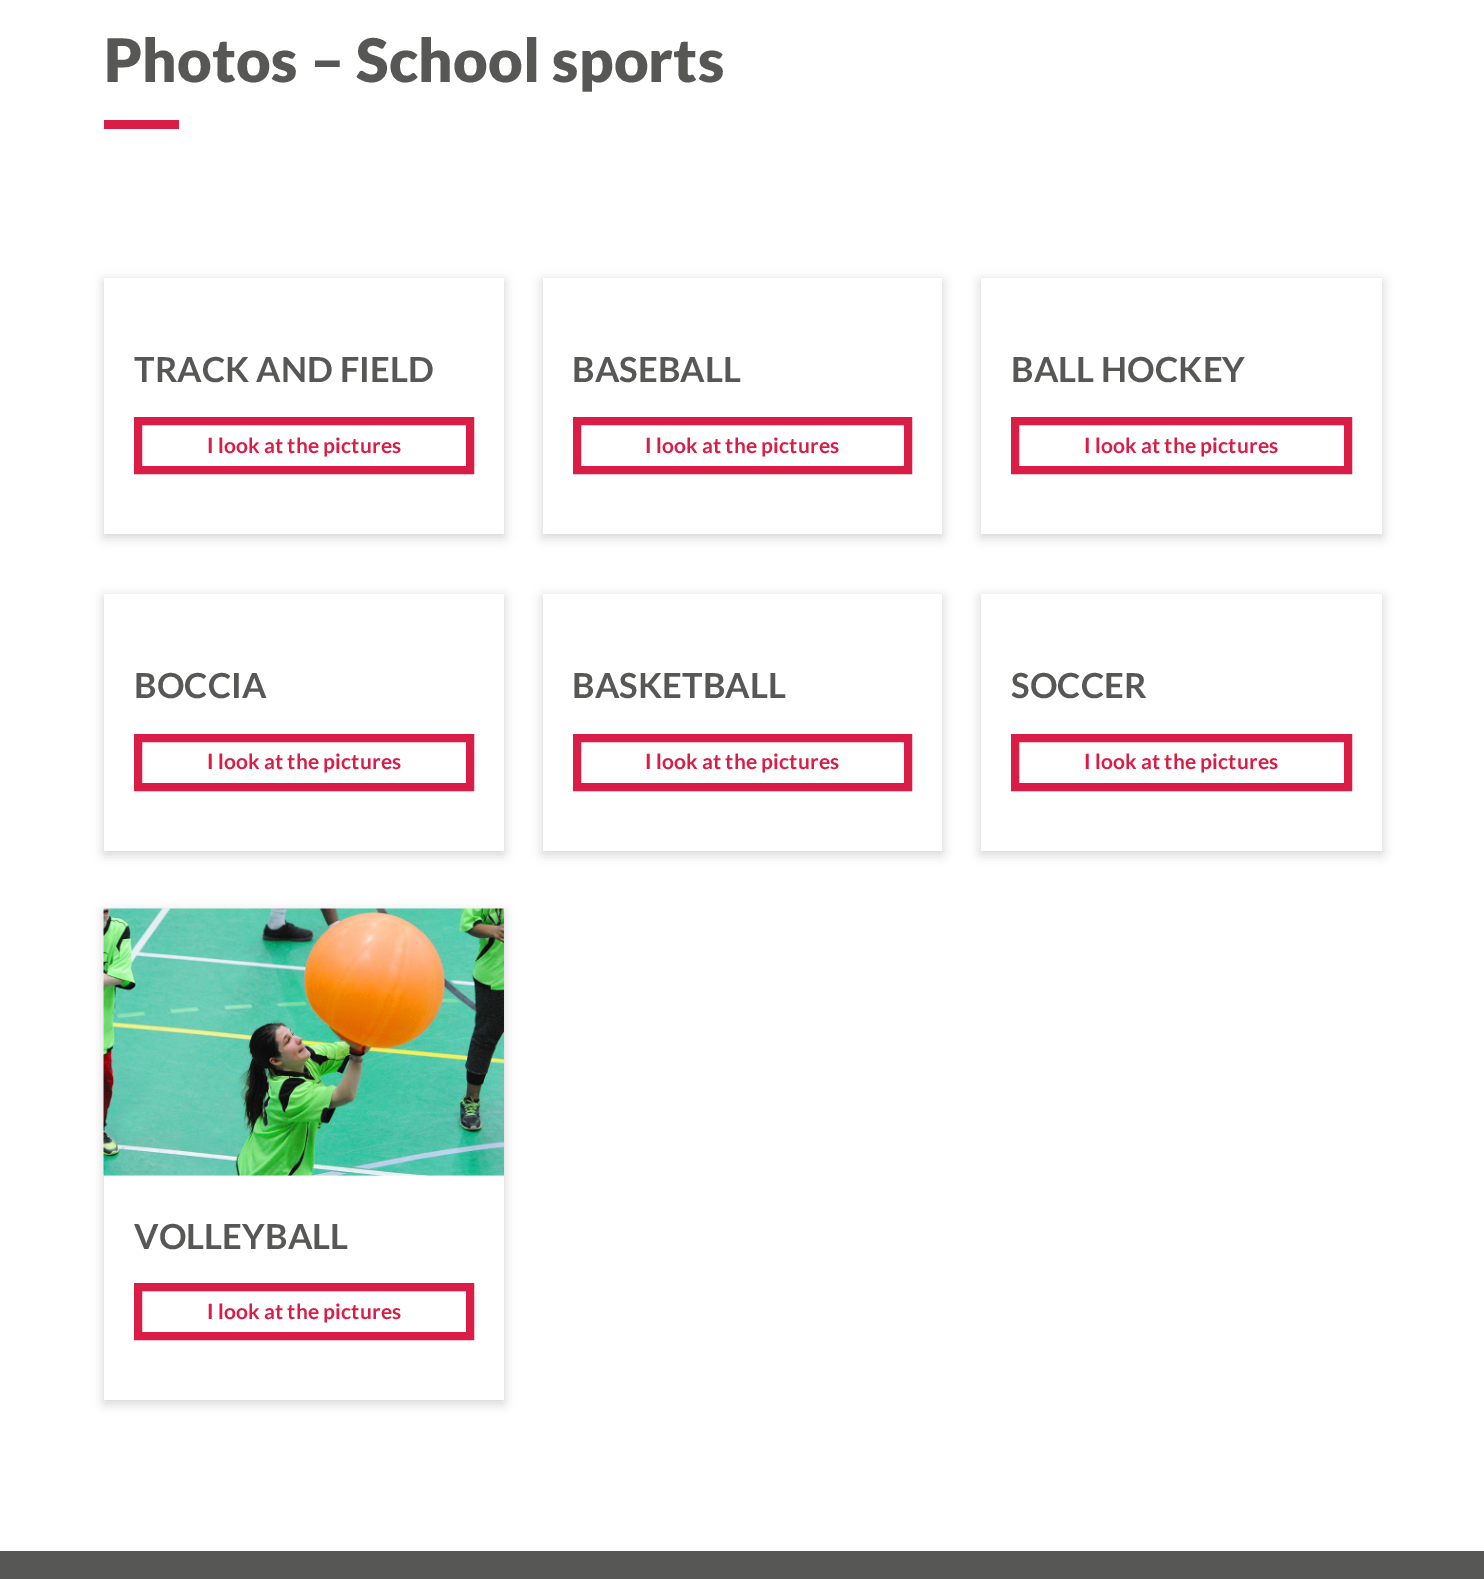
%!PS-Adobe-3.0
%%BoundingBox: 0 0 1484 1579
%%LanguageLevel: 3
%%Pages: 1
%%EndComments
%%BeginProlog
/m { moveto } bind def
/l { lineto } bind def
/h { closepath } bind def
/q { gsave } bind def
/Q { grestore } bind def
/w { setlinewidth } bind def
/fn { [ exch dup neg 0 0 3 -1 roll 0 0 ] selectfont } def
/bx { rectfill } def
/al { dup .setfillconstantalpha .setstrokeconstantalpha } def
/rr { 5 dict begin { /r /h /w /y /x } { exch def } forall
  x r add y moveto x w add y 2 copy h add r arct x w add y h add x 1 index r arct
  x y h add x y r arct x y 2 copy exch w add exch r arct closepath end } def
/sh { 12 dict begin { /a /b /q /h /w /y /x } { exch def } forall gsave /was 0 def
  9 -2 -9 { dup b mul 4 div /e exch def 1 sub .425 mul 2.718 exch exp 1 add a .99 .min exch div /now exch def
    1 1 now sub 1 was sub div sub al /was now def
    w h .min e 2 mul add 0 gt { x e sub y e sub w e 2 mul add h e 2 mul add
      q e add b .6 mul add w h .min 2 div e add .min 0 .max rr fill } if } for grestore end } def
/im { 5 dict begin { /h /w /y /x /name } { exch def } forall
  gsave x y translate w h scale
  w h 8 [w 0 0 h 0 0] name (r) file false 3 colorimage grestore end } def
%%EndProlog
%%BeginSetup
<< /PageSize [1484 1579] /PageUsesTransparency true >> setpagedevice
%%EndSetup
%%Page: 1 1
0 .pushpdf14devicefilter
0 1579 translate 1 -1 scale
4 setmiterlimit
1 setgray
0 0 1484 1579 bx
/Lato-Black 60 fn
0.341 0.341 0.337 setrgbcolor
104 82 m 0.15 0 (Photos – School sports) ashow
0.855 0.114 0.275 setrgbcolor
104 120 75 9 bx
q
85 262 m 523 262 l 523 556 l 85 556 l h 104 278 m 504 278 l 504 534 l 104 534 l h eoclip newpath
0 setgray
104 281 400 256 0 6 0.18 sh
Q
/Lato-Bold 34.5 fn
0.341 0.341 0.337 setrgbcolor
134 382 m 0.15 0 (TRACK AND FIELD) ashow
0.855 0.114 0.275 setrgbcolor
8 w
138 421 332 49 rectstroke
/Lato-Bold 21 fn
207 453 m 0.15 0 (I look at the pictures) ashow
q
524 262 m 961 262 l 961 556 l 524 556 l h 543 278 m 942 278 l 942 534 l 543 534 l h eoclip newpath
0 setgray
543 281 399 256 0 6 0.18 sh
Q
/Lato-Bold 34.5 fn
0.341 0.341 0.337 setrgbcolor
572 382 m 0.15 0 (BASEBALL) ashow
0.855 0.114 0.275 setrgbcolor
577 421 331 49 rectstroke
/Lato-Bold 21 fn
645 453 m 0.15 0 (I look at the pictures) ashow
q
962 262 m 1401 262 l 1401 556 l 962 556 l h 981 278 m 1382 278 l 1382 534 l 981 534 l h eoclip newpath
0 setgray
981 281 401 256 0 6 0.18 sh
Q
/Lato-Bold 34.5 fn
0.341 0.341 0.337 setrgbcolor
1011 382 m 0.15 0 (BALL HOCKEY) ashow
0.855 0.114 0.275 setrgbcolor
1015 421 333 49 rectstroke
/Lato-Bold 21 fn
1084 453 m 0.15 0 (I look at the pictures) ashow
q
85 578 m 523 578 l 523 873 l 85 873 l h 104 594 m 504 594 l 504 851 l 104 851 l h eoclip newpath
0 setgray
104 597 400 257 0 6 0.18 sh
Q
/Lato-Bold 34.5 fn
0.341 0.341 0.337 setrgbcolor
134 698 m 0.15 0 (BOCCIA) ashow
0.855 0.114 0.275 setrgbcolor
138 738 332 49 rectstroke
/Lato-Bold 21 fn
207 769 m 0.15 0 (I look at the pictures) ashow
q
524 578 m 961 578 l 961 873 l 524 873 l h 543 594 m 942 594 l 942 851 l 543 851 l h eoclip newpath
0 setgray
543 597 399 257 0 6 0.18 sh
Q
/Lato-Bold 34.5 fn
0.341 0.341 0.337 setrgbcolor
572 698 m 0.15 0 (BASKETBALL) ashow
0.855 0.114 0.275 setrgbcolor
577 738 331 49 rectstroke
/Lato-Bold 21 fn
645 769 m 0.15 0 (I look at the pictures) ashow
q
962 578 m 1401 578 l 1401 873 l 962 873 l h 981 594 m 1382 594 l 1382 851 l 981 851 l h eoclip newpath
0 setgray
981 597 401 257 0 6 0.18 sh
Q
/Lato-Bold 34.5 fn
0.341 0.341 0.337 setrgbcolor
1011 698 m 0.15 0 (SOCCER) ashow
0.855 0.114 0.275 setrgbcolor
1015 738 333 49 rectstroke
/Lato-Bold 21 fn
1084 769 m 0.15 0 (I look at the pictures) ashow
q
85 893 m 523 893 l 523 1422 l 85 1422 l h 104 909 m 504 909 l 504 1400 l 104 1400 l h eoclip newpath
0 setgray
104 912 400 491 0 6 0.18 sh
Q
(image0.raw) 103 908 401 268 im
/Lato-Bold 34.5 fn
0.341 0.341 0.337 setrgbcolor
134 1249 m 0.15 0 (VOLLEYBALL) ashow
0.855 0.114 0.275 setrgbcolor
138 1287 332 49 rectstroke
/Lato-Bold 21 fn
207 1319 m 0.15 0 (I look at the pictures) ashow
0.341 0.341 0.337 setrgbcolor
0 1551 1484 28 bx
.poppdf14devicefilter showpage
%%EOF
